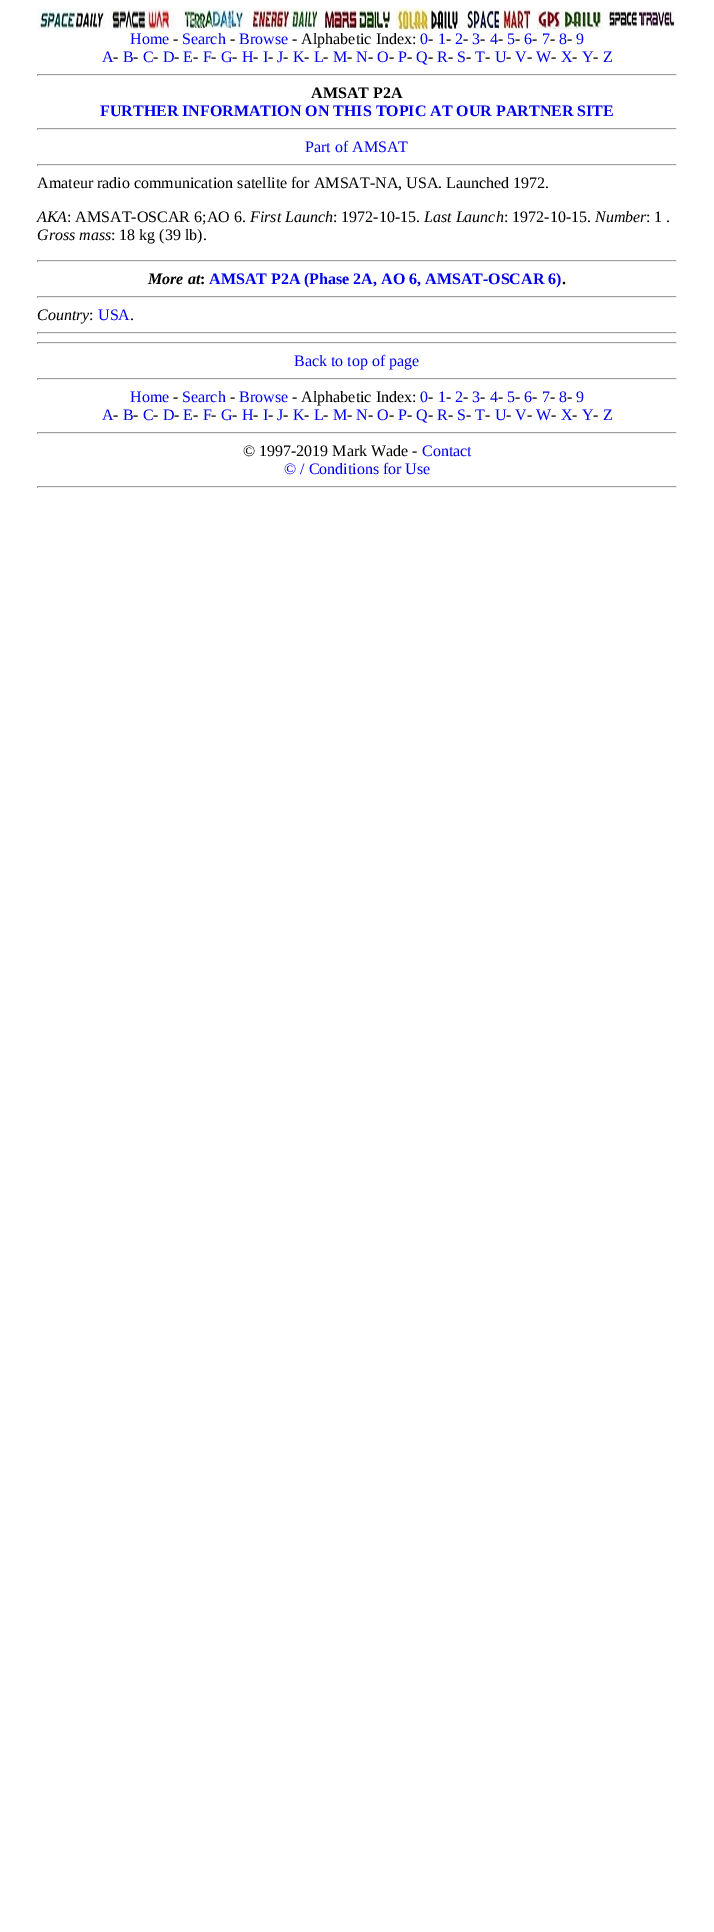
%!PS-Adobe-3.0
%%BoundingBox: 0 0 714 1932
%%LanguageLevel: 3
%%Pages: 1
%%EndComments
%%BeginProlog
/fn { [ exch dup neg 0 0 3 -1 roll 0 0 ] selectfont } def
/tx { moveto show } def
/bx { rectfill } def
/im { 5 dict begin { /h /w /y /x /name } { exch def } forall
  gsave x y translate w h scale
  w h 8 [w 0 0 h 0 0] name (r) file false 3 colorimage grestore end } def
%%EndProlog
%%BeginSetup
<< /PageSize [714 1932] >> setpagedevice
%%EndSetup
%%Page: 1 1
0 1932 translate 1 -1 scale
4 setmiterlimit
1 setgray
0 0 714 1932 bx
(image0.raw) 37 8 640 22 im
/LiberationSerif-Regular 16 fn
0 0 0.933 setrgbcolor
(Home) 130 44 tx
0 setgray
(-) 173 44 tx
0 0 0.933 setrgbcolor
(Search) 182 44 tx
0 setgray
(-) 230 44 tx
0 0 0.933 setrgbcolor
(Browse) 239 44 tx
0 setgray
(- Alphabetic Index:) 292 44 tx
0 0 0.933 setrgbcolor
(0) 420 44 tx
0 setgray
(-) 428 44 tx
0 0 0.933 setrgbcolor
(1) 438 44 tx
0 setgray
(-) 446 44 tx
0 0 0.933 setrgbcolor
(2) 455 44 tx
0 setgray
(-) 463 44 tx
0 0 0.933 setrgbcolor
(3) 472 44 tx
0 setgray
(-) 480 44 tx
0 0 0.933 setrgbcolor
(4) 490 44 tx
0 setgray
(-) 498 44 tx
0 0 0.933 setrgbcolor
(5) 507 44 tx
0 setgray
(-) 515 44 tx
0 0 0.933 setrgbcolor
(6) 524 44 tx
0 setgray
(-) 532 44 tx
0 0 0.933 setrgbcolor
(7) 542 44 tx
0 setgray
(-) 550 44 tx
0 0 0.933 setrgbcolor
(8) 559 44 tx
0 setgray
(-) 567 44 tx
0 0 0.933 setrgbcolor
(9) 576 44 tx
(A) 102 62 tx
0 setgray
(-) 113 62 tx
0 0 0.933 setrgbcolor
(B) 123 62 tx
0 setgray
(-) 133 62 tx
0 0 0.933 setrgbcolor
(C) 143 62 tx
0 setgray
(-) 153 62 tx
0 0 0.933 setrgbcolor
(D) 163 62 tx
0 setgray
(-) 174 62 tx
0 0 0.933 setrgbcolor
(E) 183 62 tx
0 setgray
(-) 193 62 tx
0 0 0.933 setrgbcolor
(F) 203 62 tx
0 setgray
(-) 211 62 tx
0 0 0.933 setrgbcolor
(G) 221 62 tx
0 setgray
(-) 232 62 tx
0 0 0.933 setrgbcolor
(H) 242 62 tx
0 setgray
(-) 253 62 tx
0 0 0.933 setrgbcolor
(I) 263 62 tx
0 setgray
(-) 268 62 tx
0 0 0.933 setrgbcolor
(J) 277 62 tx
0 setgray
(-) 283 62 tx
0 0 0.933 setrgbcolor
(K) 293 62 tx
0 setgray
(-) 304 62 tx
0 0 0.933 setrgbcolor
(L) 314 62 tx
0 setgray
(-) 323 62 tx
0 0 0.933 setrgbcolor
(M) 333 62 tx
0 setgray
(-) 347 62 tx
0 0 0.933 setrgbcolor
(N) 356 62 tx
0 setgray
(-) 368 62 tx
0 0 0.933 setrgbcolor
(O) 377 62 tx
0 setgray
(-) 389 62 tx
0 0 0.933 setrgbcolor
(P) 398 62 tx
0 setgray
(-) 407 62 tx
0 0 0.933 setrgbcolor
(Q) 416 62 tx
0 setgray
(-) 428 62 tx
0 0 0.933 setrgbcolor
(R) 437 62 tx
0 setgray
(-) 448 62 tx
0 0 0.933 setrgbcolor
(S) 457 62 tx
0 setgray
(-) 466 62 tx
0 0 0.933 setrgbcolor
(T) 475 62 tx
0 setgray
(-) 485 62 tx
0 0 0.933 setrgbcolor
(U) 495 62 tx
0 setgray
(-) 506 62 tx
0 0 0.933 setrgbcolor
(V) 515 62 tx
0 setgray
(-) 527 62 tx
0 0 0.933 setrgbcolor
(W) 536 62 tx
0 setgray
(-) 551 62 tx
0 0 0.933 setrgbcolor
(X) 561 62 tx
0 setgray
(-) 572 62 tx
0 0 0.933 setrgbcolor
(Y) 582 62 tx
0 setgray
(-) 593 62 tx
0 0 0.933 setrgbcolor
(Z) 603 62 tx
0.624 setgray
37 74 640 1 bx
0.933 setgray
676 74 1 2 bx
37 75 640 1 bx
0.624 setgray
37 74 1 2 bx
/LiberationSerif-Bold 16 fn
0 setgray
(AMSAT P2A) 311 98 tx
0 0 0.933 setrgbcolor
(FURTHER INFORMATION ON THIS TOPIC AT OUR PARTNER SITE) 100 116 tx
0.624 setgray
37 128 640 1 bx
0.933 setgray
676 128 1 2 bx
37 129 640 1 bx
0.624 setgray
37 128 1 2 bx
/LiberationSerif-Regular 16 fn
0 0 0.933 setrgbcolor
(Part of AMSAT) 305 152 tx
0.624 setgray
37 164 640 1 bx
0.933 setgray
676 164 1 2 bx
37 165 640 1 bx
0.624 setgray
37 164 1 2 bx
0 setgray
(Amateur radio communication satellite for AMSAT-NA, USA. Launched 1972.) 37 188 tx
/LiberationSerif-Italic 16 fn
(AKA) 37 222 tx
/LiberationSerif-Regular 16 fn
(: AMSAT-OSCAR 6;AO 6.) 67 222 tx
/LiberationSerif-Italic 16 fn
(First Launch) 250 222 tx
/LiberationSerif-Regular 16 fn
(: 1972-10-15.) 333 222 tx
/LiberationSerif-Italic 16 fn
(Last Launch) 424 222 tx
/LiberationSerif-Regular 16 fn
(: 1972-10-15.) 504 222 tx
/LiberationSerif-Italic 16 fn
(Number) 595 222 tx
/LiberationSerif-Regular 16 fn
(: 1 .) 646 222 tx
/LiberationSerif-Italic 16 fn
(Gross mass) 37 240 tx
/LiberationSerif-Regular 16 fn
(: 18 kg \(39 lb\).) 111 240 tx
0.624 setgray
37 260 640 1 bx
0.933 setgray
676 260 1 2 bx
37 261 640 1 bx
0.624 setgray
37 260 1 2 bx
/LiberationSerif-BoldItalic 16 fn
0 setgray
(More at) 148 284 tx
/LiberationSerif-Bold 16 fn
(:) 200 284 tx
0 0 0.933 setrgbcolor
(AMSAT P2A \(Phase 2A, AO 6, AMSAT-OSCAR 6\)) 209 284 tx
0 setgray
(.) 562 284 tx
0.624 setgray
37 296 640 1 bx
0.933 setgray
676 296 1 2 bx
37 297 640 1 bx
0.624 setgray
37 296 1 2 bx
/LiberationSerif-Italic 16 fn
0 setgray
(Country) 37 320 tx
/LiberationSerif-Regular 16 fn
(:) 89 320 tx
0 0 0.933 setrgbcolor
(USA) 98 320 tx
0 setgray
(.) 130 320 tx
0.624 setgray
37 332 640 1 bx
0.933 setgray
676 332 1 2 bx
37 333 640 1 bx
0.624 setgray
37 332 1 2 bx
37 342 640 1 bx
0.933 setgray
676 342 1 2 bx
37 343 640 1 bx
0.624 setgray
37 342 1 2 bx
0 0 0.933 setrgbcolor
(Back to top of page) 294 366 tx
0.624 setgray
37 378 640 1 bx
0.933 setgray
676 378 1 2 bx
37 379 640 1 bx
0.624 setgray
37 378 1 2 bx
0 0 0.933 setrgbcolor
(Home) 130 402 tx
0 setgray
(-) 173 402 tx
0 0 0.933 setrgbcolor
(Search) 182 402 tx
0 setgray
(-) 230 402 tx
0 0 0.933 setrgbcolor
(Browse) 239 402 tx
0 setgray
(- Alphabetic Index:) 292 402 tx
0 0 0.933 setrgbcolor
(0) 420 402 tx
0 setgray
(-) 428 402 tx
0 0 0.933 setrgbcolor
(1) 438 402 tx
0 setgray
(-) 446 402 tx
0 0 0.933 setrgbcolor
(2) 455 402 tx
0 setgray
(-) 463 402 tx
0 0 0.933 setrgbcolor
(3) 472 402 tx
0 setgray
(-) 480 402 tx
0 0 0.933 setrgbcolor
(4) 490 402 tx
0 setgray
(-) 498 402 tx
0 0 0.933 setrgbcolor
(5) 507 402 tx
0 setgray
(-) 515 402 tx
0 0 0.933 setrgbcolor
(6) 524 402 tx
0 setgray
(-) 532 402 tx
0 0 0.933 setrgbcolor
(7) 542 402 tx
0 setgray
(-) 550 402 tx
0 0 0.933 setrgbcolor
(8) 559 402 tx
0 setgray
(-) 567 402 tx
0 0 0.933 setrgbcolor
(9) 576 402 tx
(A) 102 420 tx
0 setgray
(-) 113 420 tx
0 0 0.933 setrgbcolor
(B) 123 420 tx
0 setgray
(-) 133 420 tx
0 0 0.933 setrgbcolor
(C) 143 420 tx
0 setgray
(-) 153 420 tx
0 0 0.933 setrgbcolor
(D) 163 420 tx
0 setgray
(-) 174 420 tx
0 0 0.933 setrgbcolor
(E) 183 420 tx
0 setgray
(-) 193 420 tx
0 0 0.933 setrgbcolor
(F) 203 420 tx
0 setgray
(-) 211 420 tx
0 0 0.933 setrgbcolor
(G) 221 420 tx
0 setgray
(-) 232 420 tx
0 0 0.933 setrgbcolor
(H) 242 420 tx
0 setgray
(-) 253 420 tx
0 0 0.933 setrgbcolor
(I) 263 420 tx
0 setgray
(-) 268 420 tx
0 0 0.933 setrgbcolor
(J) 277 420 tx
0 setgray
(-) 283 420 tx
0 0 0.933 setrgbcolor
(K) 293 420 tx
0 setgray
(-) 304 420 tx
0 0 0.933 setrgbcolor
(L) 314 420 tx
0 setgray
(-) 323 420 tx
0 0 0.933 setrgbcolor
(M) 333 420 tx
0 setgray
(-) 347 420 tx
0 0 0.933 setrgbcolor
(N) 356 420 tx
0 setgray
(-) 368 420 tx
0 0 0.933 setrgbcolor
(O) 377 420 tx
0 setgray
(-) 389 420 tx
0 0 0.933 setrgbcolor
(P) 398 420 tx
0 setgray
(-) 407 420 tx
0 0 0.933 setrgbcolor
(Q) 416 420 tx
0 setgray
(-) 428 420 tx
0 0 0.933 setrgbcolor
(R) 437 420 tx
0 setgray
(-) 448 420 tx
0 0 0.933 setrgbcolor
(S) 457 420 tx
0 setgray
(-) 466 420 tx
0 0 0.933 setrgbcolor
(T) 475 420 tx
0 setgray
(-) 485 420 tx
0 0 0.933 setrgbcolor
(U) 495 420 tx
0 setgray
(-) 506 420 tx
0 0 0.933 setrgbcolor
(V) 515 420 tx
0 setgray
(-) 527 420 tx
0 0 0.933 setrgbcolor
(W) 536 420 tx
0 setgray
(-) 551 420 tx
0 0 0.933 setrgbcolor
(X) 561 420 tx
0 setgray
(-) 572 420 tx
0 0 0.933 setrgbcolor
(Y) 582 420 tx
0 setgray
(-) 593 420 tx
0 0 0.933 setrgbcolor
(Z) 603 420 tx
0.624 setgray
37 432 640 1 bx
0.933 setgray
676 432 1 2 bx
37 433 640 1 bx
0.624 setgray
37 432 1 2 bx
0 setgray
(© 1997-2019 Mark Wade -) 243 456 tx
0 0 0.933 setrgbcolor
(Contact) 422 456 tx
(© / Conditions for Use) 284 474 tx
0.624 setgray
37 486 640 1 bx
0.933 setgray
676 486 1 2 bx
37 487 640 1 bx
0.624 setgray
37 486 1 2 bx
showpage
%%EOF
